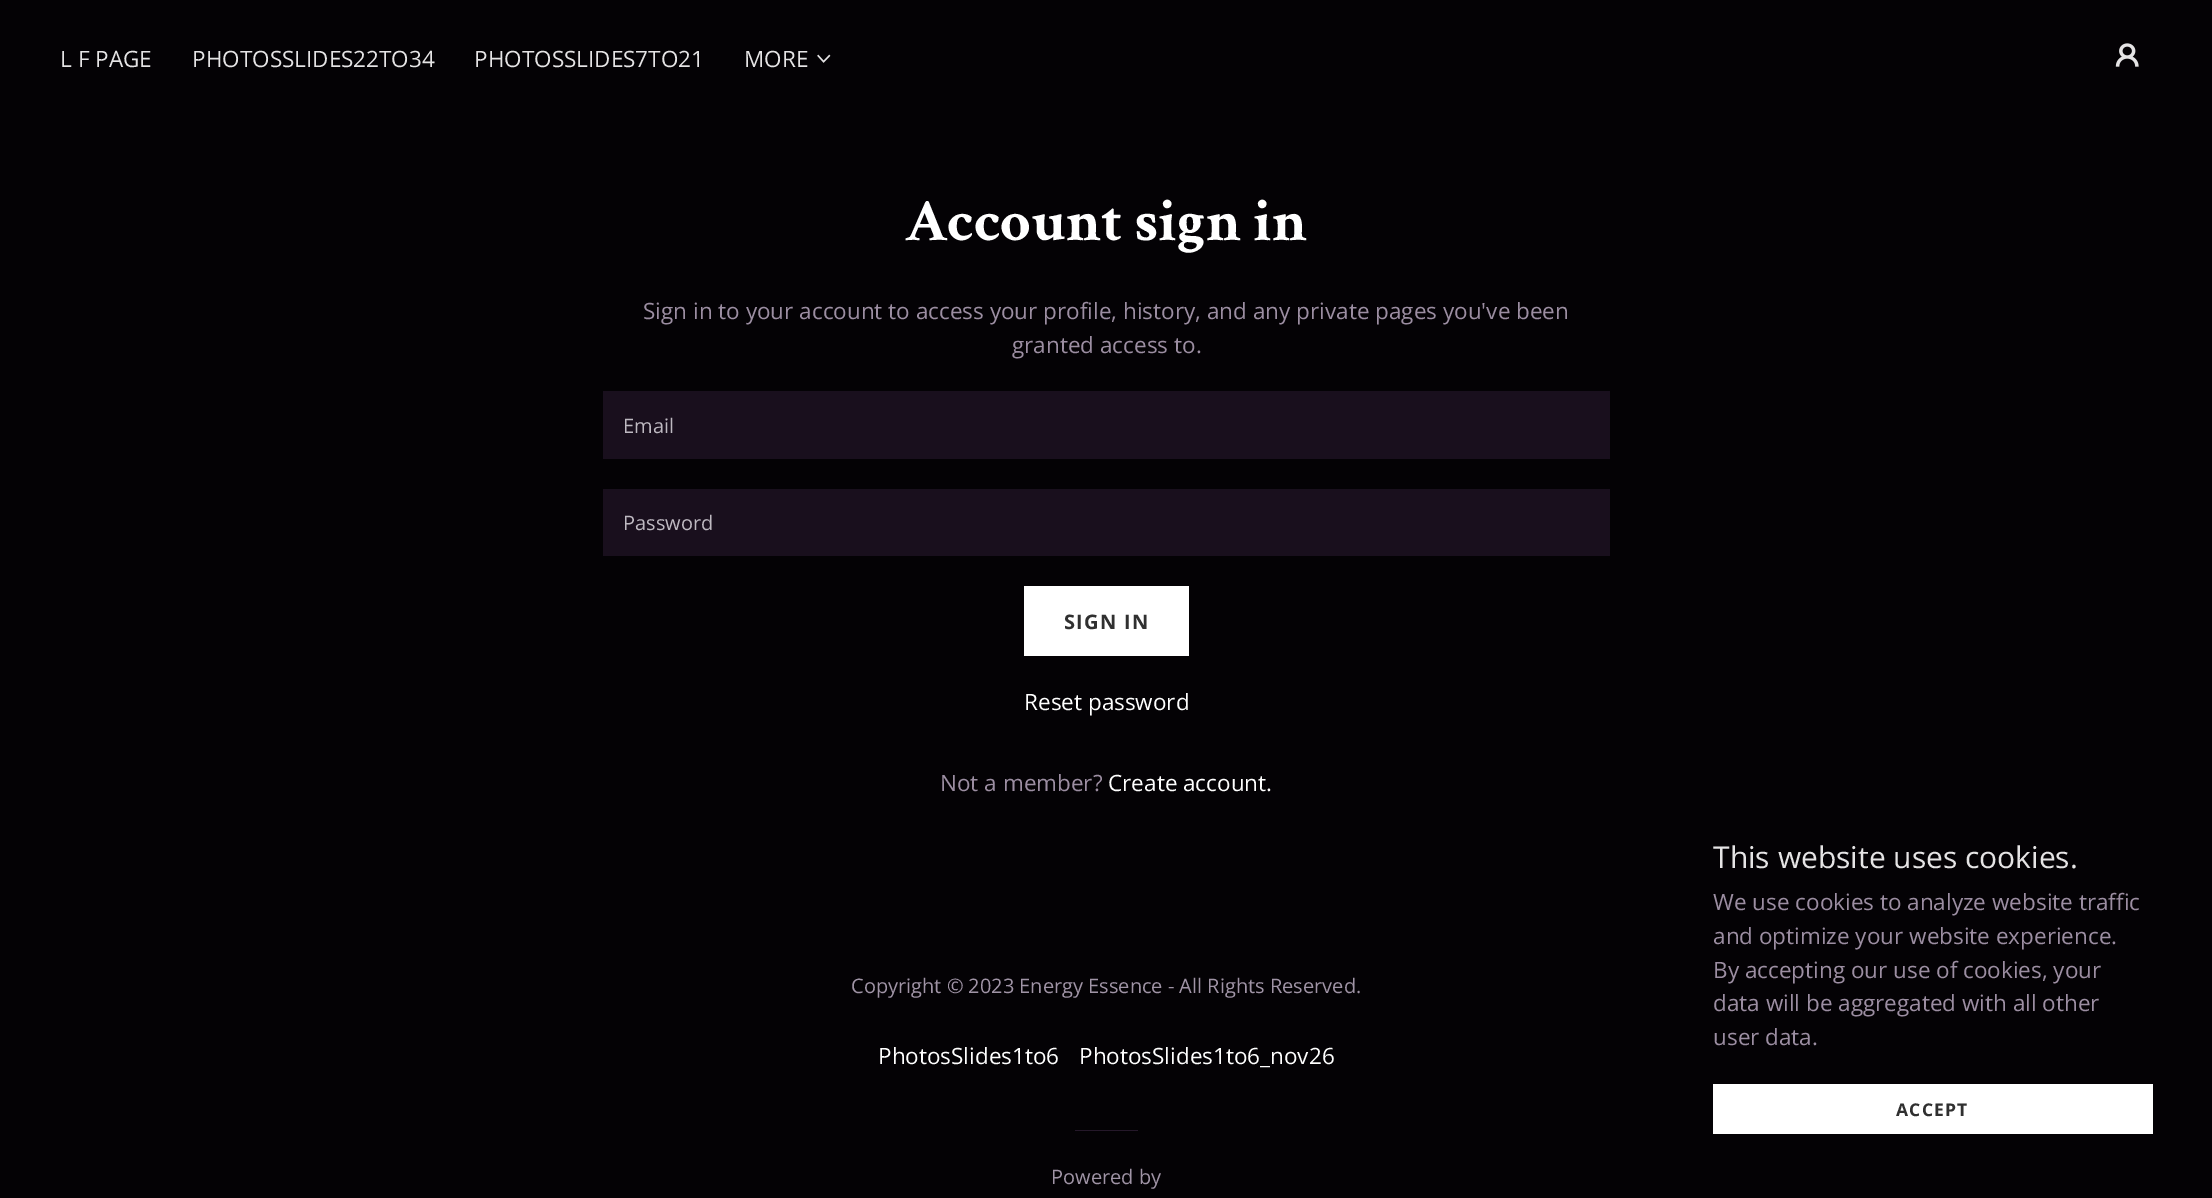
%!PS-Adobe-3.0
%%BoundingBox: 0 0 2212 1198
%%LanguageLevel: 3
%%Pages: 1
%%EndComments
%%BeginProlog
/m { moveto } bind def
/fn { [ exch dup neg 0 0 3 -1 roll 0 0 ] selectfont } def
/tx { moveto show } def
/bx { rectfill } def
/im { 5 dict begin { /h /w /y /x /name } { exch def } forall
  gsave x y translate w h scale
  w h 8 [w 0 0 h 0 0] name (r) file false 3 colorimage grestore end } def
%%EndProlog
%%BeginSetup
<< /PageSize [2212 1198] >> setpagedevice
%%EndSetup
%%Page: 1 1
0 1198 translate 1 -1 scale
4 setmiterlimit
0.016 0.008 0.02 setrgbcolor
0 0 2212 1198 bx
/OpenSans-Regular 22.5 fn
0.898 0.894 0.898 setrgbcolor
(L F PAGE) 60 67 tx
(PHOTOSSLIDES22TO34) 192 67 tx
(PHOTOSSLIDES7TO21) 474 67 tx
(MORE) 744 67 tx
(image0.raw) 817 54 14 9 im
(image1.raw) 2115 43 24 24 im
/CrimsonText-Bold 60 fn
1 setgray
(Account sign in) 905 240 tx
/OpenSans-Regular 22.5 fn
0.612 0.557 0.635 setrgbcolor
(Sign in to your account to access your profile, history, and any private pages you've been) 643 319 tx
(granted access to.) 1012 353 tx
0.098 0.059 0.114 setrgbcolor
603 391 1007 68 bx
/OpenSans-Regular 20 fn
0.745 0.725 0.757 setrgbcolor
(Email) 623 433 tx
0.098 0.059 0.114 setrgbcolor
603 489 1007 67 bx
0.745 0.725 0.757 setrgbcolor
(Password) 623 530 tx
1 setgray
1024 586 165 70 bx
/OpenSans-Bold 20 fn
0.188 setgray
1064 629 m 1.25 0 (SIGN IN) ashow
/OpenSans-Regular 22.5 fn
1 setgray
(Reset password) 1024 710 tx
0.612 0.557 0.635 setrgbcolor
(Not a member?) 940 791 tx
1 setgray
(Create account.) 1108 791 tx
/OpenSans-Regular 20 fn
0.627 0.58 0.651 setrgbcolor
(Copyright © 2023 Energy Essence - All Rights Reserved.) 851 993 tx
/OpenSans-Regular 22.5 fn
1 setgray
(PhotosSlides1to6) 878 1064 tx
(PhotosSlides1to6_nov26) 1079 1064 tx
0.145 0.094 0.165 setrgbcolor
1075 1130 63 1 bx
/OpenSans-Regular 20 fn
0.627 0.58 0.651 setrgbcolor
(Powered by) 1051 1184 tx
/OpenSans-Regular 30 fn
0.898 0.894 0.898 setrgbcolor
(This website uses cookies.) 1713 868 tx
/OpenSans-Regular 22.5 fn
0.612 0.557 0.635 setrgbcolor
(We use cookies to analyze website traffic) 1713 910 tx
(and optimize your website experience.) 1713 944 tx
(By accepting our use of cookies, your) 1713 978 tx
(data will be aggregated with all other) 1713 1011 tx
(user data.) 1713 1045 tx
1 setgray
1713 1084 440 50 bx
/OpenSans-Bold 17.5 fn
0.188 setgray
1896 1116 m 1.25 0 (ACCEPT) ashow
showpage
%%EOF
